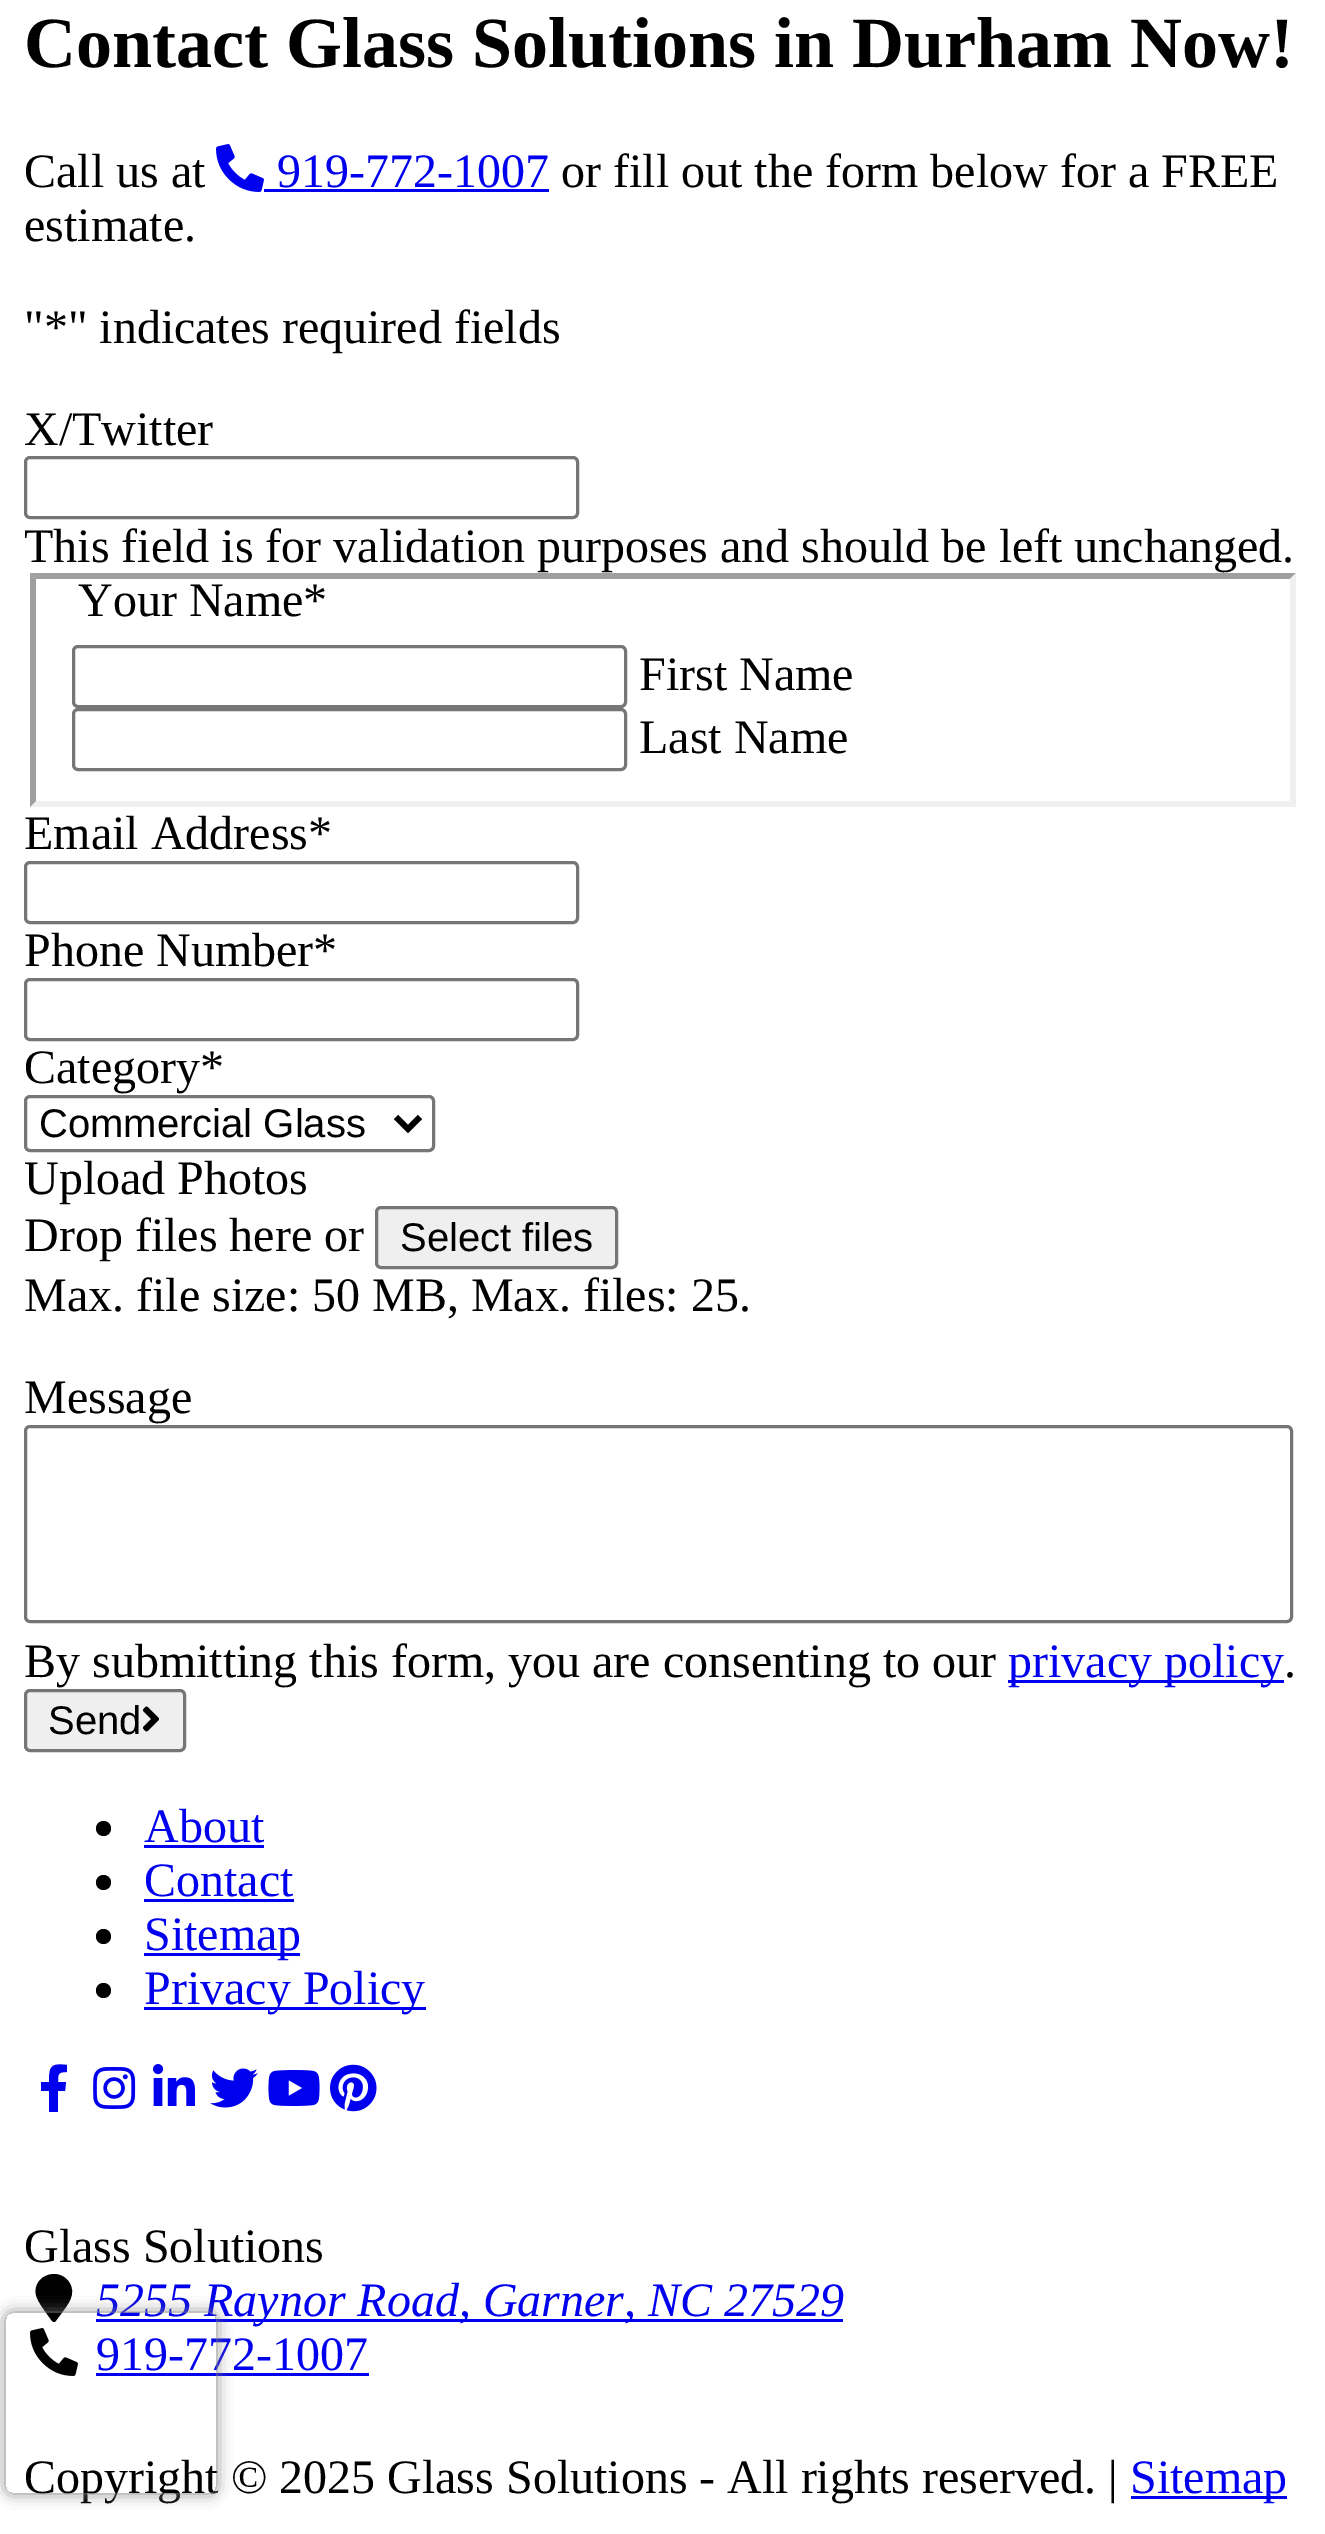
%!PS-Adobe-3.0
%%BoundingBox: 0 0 1325 2534
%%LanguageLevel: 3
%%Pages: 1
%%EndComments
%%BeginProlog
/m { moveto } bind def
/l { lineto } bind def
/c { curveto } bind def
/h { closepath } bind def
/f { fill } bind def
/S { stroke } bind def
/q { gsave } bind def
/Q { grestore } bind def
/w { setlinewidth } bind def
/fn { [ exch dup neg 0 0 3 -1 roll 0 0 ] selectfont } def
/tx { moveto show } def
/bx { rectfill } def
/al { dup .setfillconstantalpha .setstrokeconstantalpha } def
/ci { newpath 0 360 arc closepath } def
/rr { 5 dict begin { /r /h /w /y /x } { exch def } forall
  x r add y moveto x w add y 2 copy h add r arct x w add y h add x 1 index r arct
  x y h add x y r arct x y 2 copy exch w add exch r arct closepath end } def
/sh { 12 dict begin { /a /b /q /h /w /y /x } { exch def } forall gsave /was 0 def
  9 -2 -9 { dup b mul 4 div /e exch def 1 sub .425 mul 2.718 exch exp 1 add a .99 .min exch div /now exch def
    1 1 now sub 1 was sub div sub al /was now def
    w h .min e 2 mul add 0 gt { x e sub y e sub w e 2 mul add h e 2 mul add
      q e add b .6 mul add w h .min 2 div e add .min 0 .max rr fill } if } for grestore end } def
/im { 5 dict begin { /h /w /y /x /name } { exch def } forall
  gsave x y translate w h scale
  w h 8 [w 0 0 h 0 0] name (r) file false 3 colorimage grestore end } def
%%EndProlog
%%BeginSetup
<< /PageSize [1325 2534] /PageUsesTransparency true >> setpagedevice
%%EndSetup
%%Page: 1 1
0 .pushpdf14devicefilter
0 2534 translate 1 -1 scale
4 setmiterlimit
1 setgray
0 0 1325 2534 bx
/LiberationSerif-Bold 72 fn
0 setgray
(Contact Glass Solutions in Durham Now!) 24 67 tx
/LiberationSerif-Regular 48 fn
(Call us at) 24 187 tx
(image0.raw) 216 144 48 48 im
0 0 0.933 setrgbcolor
(919-772-1007) 277 187 tx
264 189 285 3 bx
0 setgray
(or fill out the form below for a FREE) 561 187 tx
(estimate.) 24 241 tx
("*" indicates required fields) 24 343 tx
(X/Twitter) 24 445 tx
0.463 setgray
3 w
25.5 457.5 552 60 4.5 rr S
0 setgray
(This field is for validation purposes and should be left unchanged.) 24 562 tx
0.624 setgray
30 573 m 1296 573 l 1290 579 l 36 579 l h f
0.937 setgray
1296 573 m 1296 807 l 1290 801 l 1290 579 l h f
1296 807 m 30 807 l 36 801 l 1290 801 l h f
0.624 setgray
30 807 m 30 573 l 36 579 l 36 801 l h f
0 setgray
(Your Name*) 78 616 tx
0.463 setgray
73.5 646.5 552 60 4.5 rr S
0 setgray
(First Name) 639 690 tx
0.463 setgray
73.5 709.5 552 60 4.5 rr S
0 setgray
(Last Name) 639 753 tx
(Email Address*) 24 849 tx
0.463 setgray
25.5 862.5 552 60 4.5 rr S
0 setgray
(Phone Number*) 24 966 tx
0.463 setgray
25.5 979.5 552 60 4.5 rr S
0 setgray
(Category*) 24 1083 tx
0.463 setgray
25.5 1096.5 408 54 4.5 rr S
0 setgray
6 w
396 1117 m 408 1129 l 420 1117 l S
/LiberationSans-Regular 40 fn
(Commercial Glass) 39 1137 tx
/LiberationSerif-Regular 48 fn
(Upload Photos) 24 1194 tx
(Drop files here or) 24 1251 tx
0.937 setgray
376.5 1207.5 240 60 4.5 rr q f Q
0.463 setgray
3 w
S
/LiberationSans-Regular 40 fn
0 setgray
(Select files) 400 1251 tx
/LiberationSerif-Regular 48 fn
(Max. file size: 50 MB, Max. files: 25.) 24 1311 tx
(Message) 24 1413 tx
0.463 setgray
25.5 1426.5 1266 195 4.5 rr S
0 setgray
(By submitting this form, you are consenting to our) 24 1677 tx
0 0 0.933 setrgbcolor
1008 1680 276 3 bx
(privacy policy) 1008 1677 tx
0 setgray
(.) 1284 1677 tx
0.937 setgray
25.5 1690.5 159 60 4.5 rr q f Q
0.463 setgray
S
/LiberationSans-Regular 40 fn
0 setgray
(Send) 48 1734 tx
(image1.raw) 143 1706 16 26 im
103.5 1828.5 7.5 ci f
/LiberationSerif-Regular 48 fn
0 0 0.933 setrgbcolor
(About) 144 1842 tx
144 1845 120 3 bx
0 setgray
103.5 1882.5 7.5 ci f
0 0 0.933 setrgbcolor
(Contact) 144 1896 tx
144 1899 150 3 bx
0 setgray
103.5 1936.5 7.5 ci f
0 0 0.933 setrgbcolor
144 1953 156 3 bx
(Sitemap) 144 1950 tx
0 setgray
103.5 1990.5 7.5 ci f
0 0 0.933 setrgbcolor
144 2007 282 3 bx
(Privacy Policy) 144 2004 tx
65 2091 m 58 2091 l 58 2112 l 49 2112 l 49 2091 l 41 2091 l 41 2082 l 49 2082 l 49 2066 51 2063 67 2065 c 67 2072 l 58 2072 58 2074 58 2082 c 66 2082 l h f
(image2.raw) 93 2067 43 42 im
(image3.raw) 153 2064 42 42 im
(image4.raw) 210 2068 48 40 im
(image5.raw) 268 2070 52 36 im
(image6.raw) 330 2064 47 48 im
0 setgray
(Glass Solutions) 24 2262 tx
52 2321 m 48 2315 38 2303 36 2295 c 32 2276 58 2266 69 2282 c 77 2294 68 2304 61 2314 c 55 2322 l 54 2322 53 2322 52 2321 c h f
0 0 0.933 setrgbcolor
96 2319 747 3 bx
/LiberationSerif-Italic 48 fn
(5255 Raynor Road, Garner, NC 27529) 96 2316 tx
(image7.raw) 30 2328 48 48 im
/LiberationSerif-Regular 48 fn
(919-772-1007) 96 2370 tx
96 2373 273 3 bx
0 setgray
(Copyright © 2025 Glass Solutions - All rights reserved. |) 24 2493 tx
0 0 0.933 setrgbcolor
1131 2496 156 3 bx
(Sitemap) 1130 2493 tx
q
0 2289 m 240 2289 l 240 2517 l 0 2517 l h 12 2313 m 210 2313 l 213.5 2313 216 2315.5 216 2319 c 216 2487 l 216 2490.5 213.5 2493 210 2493 c 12 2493 l 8.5 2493 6 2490.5 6 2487 c 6 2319 l 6 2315.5 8.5 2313 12 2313 c h eoclip newpath
0.502 setgray
6 2313 210 180 6 7.5 1 sh
Q
.poppdf14devicefilter showpage
%%EOF
